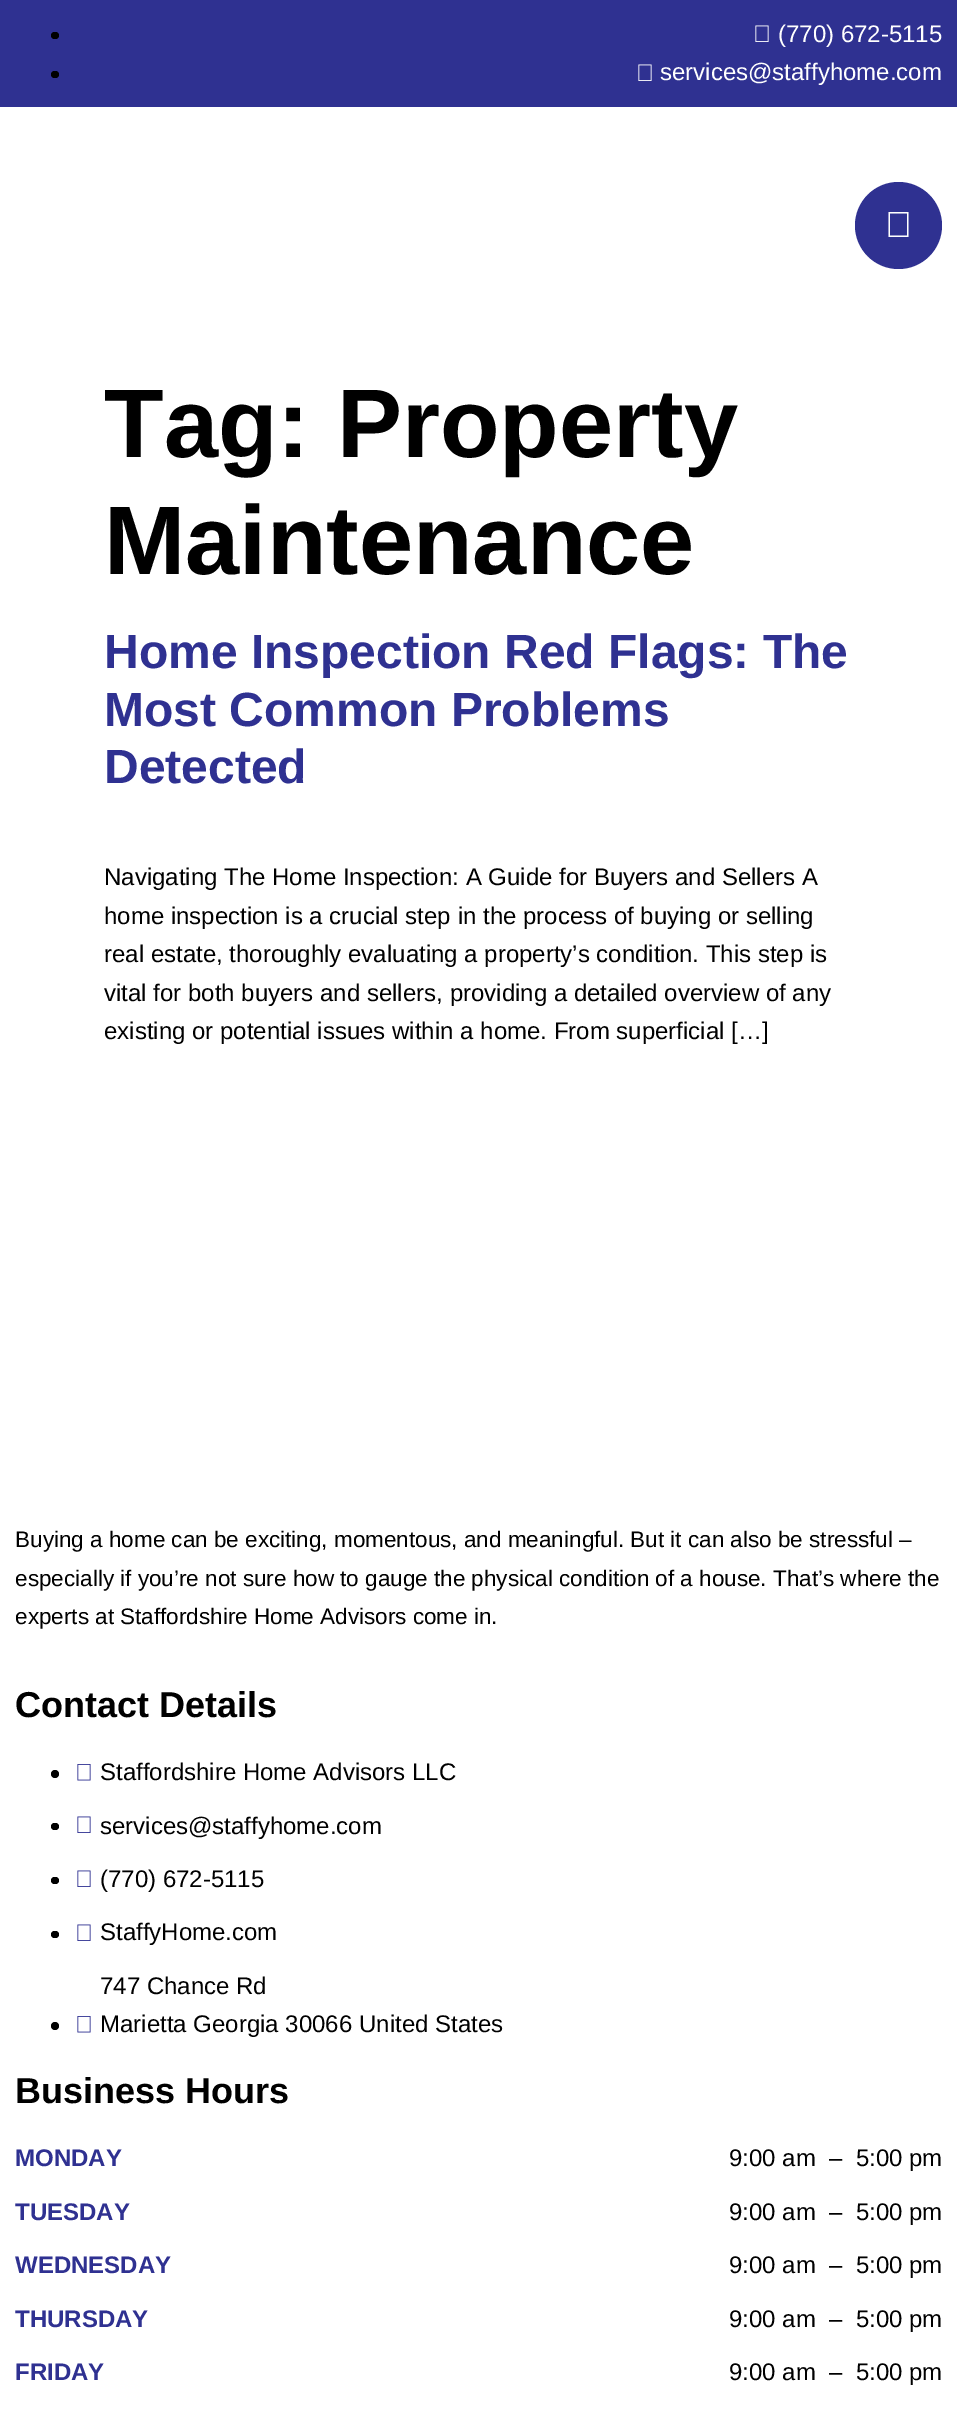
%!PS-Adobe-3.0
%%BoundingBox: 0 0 957 2419
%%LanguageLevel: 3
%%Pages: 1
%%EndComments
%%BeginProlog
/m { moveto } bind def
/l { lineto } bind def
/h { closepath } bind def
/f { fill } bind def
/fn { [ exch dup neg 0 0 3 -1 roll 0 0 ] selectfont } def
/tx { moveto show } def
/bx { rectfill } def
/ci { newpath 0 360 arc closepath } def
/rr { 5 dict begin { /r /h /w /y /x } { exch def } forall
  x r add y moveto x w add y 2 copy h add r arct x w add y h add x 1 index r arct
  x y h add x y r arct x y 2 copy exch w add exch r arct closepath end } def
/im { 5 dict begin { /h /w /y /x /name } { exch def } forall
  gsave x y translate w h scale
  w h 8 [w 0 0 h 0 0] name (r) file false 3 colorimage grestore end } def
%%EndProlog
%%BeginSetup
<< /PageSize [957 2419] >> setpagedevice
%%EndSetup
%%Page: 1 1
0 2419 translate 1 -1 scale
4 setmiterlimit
1 setgray
0 0 957 2419 bx
0.184 0.192 0.569 setrgbcolor
0 0 957 107 bx
0 setgray
51 32 8 7 3.5 rr f
(image0.raw) 755 25 14 17 im
/LiberationSans-Regular 24 fn
1 setgray
(\(770\) 672-5115) 778 42 tx
0 setgray
51 71 8 7 3.5 rr f
(image0.raw) 638 64 14 17 im
1 setgray
(services@staffyhome.com) 660 80 tx
0.184 0.192 0.569 setrgbcolor
898.5 225.5 43.5 ci f
1 setgray
888.5 212 m 908.5 212 l 908.5 237 l 888.5 237 l h 890 213.5 m 890 235.5 l 907 235.5 l 907 213.5 l h f
/LiberationSans-Bold 97.5 fn
0 setgray
(Tag: Property) 104 457 tx
(Maintenance) 104 574 tx
/LiberationSans-Bold 48 fn
0.184 0.192 0.569 setrgbcolor
(Home Inspection Red Flags: The) 104 668 tx
(Most Common Problems) 104 726 tx
(Detected) 104 783 tx
/LiberationSans-Regular 24 fn
0 setgray
(Navigating The Home Inspection: A Guide for Buyers and Sellers A) 104 885 tx
(home inspection is a crucial step in the process of buying or selling) 104 924 tx
(real estate, thoroughly evaluating a property’s condition. This step is) 104 962 tx
(vital for both buyers and sellers, providing a detailed overview of any) 104 1001 tx
(existing or potential issues within a home. From superficial […]) 104 1039 tx
/LiberationSans-Regular 22.5 fn
(Buying a home can be exciting, momentous, and meaningful. But it can also be stressful –) 15 1547 tx
(especially if you’re not sure how to gauge the physical condition of a house. That’s where the) 15 1586 tx
(experts at Staffordshire Home Advisors come in.) 15 1624 tx
/LiberationSans-Bold 36 fn
(Contact Details) 15 1717 tx
55 1774 4 ci f
(image1.raw) 77 1764 14 17 im
/LiberationSans-Regular 24 fn
(Staffordshire Home Advisors LLC) 100 1780 tx
51 1823 8 7 3.5 rr f
(image2.raw) 77 1816 14 17 im
(services@staffyhome.com) 100 1834 tx
51 1877 8 7 3.5 rr f
(image2.raw) 77 1870 14 17 im
(\(770\) 672-5115) 100 1887 tx
51 1931 8 7 3.5 rr f
(image2.raw) 77 1924 14 17 im
(StaffyHome.com) 100 1940 tx
55 2026 4 ci f
(image1.raw) 77 2016 14 17 im
(747 Chance Rd) 100 1994 tx
(Marietta Georgia 30066 United States) 100 2032 tx
/LiberationSans-Bold 36 fn
(Business Hours) 15 2103 tx
/LiberationSans-Bold 24 fn
0.184 0.192 0.569 setrgbcolor
(MONDAY) 15 2166 tx
/LiberationSans-Regular 24 fn
0 setgray
(9:00 am  –  5:00 pm) 729 2166 tx
/LiberationSans-Bold 24 fn
0.184 0.192 0.569 setrgbcolor
(TUESDAY) 15 2220 tx
/LiberationSans-Regular 24 fn
0 setgray
(9:00 am  –  5:00 pm) 729 2220 tx
/LiberationSans-Bold 24 fn
0.184 0.192 0.569 setrgbcolor
(WEDNESDAY) 15 2273 tx
/LiberationSans-Regular 24 fn
0 setgray
(9:00 am  –  5:00 pm) 729 2273 tx
/LiberationSans-Bold 24 fn
0.184 0.192 0.569 setrgbcolor
(THURSDAY) 15 2327 tx
/LiberationSans-Regular 24 fn
0 setgray
(9:00 am  –  5:00 pm) 729 2327 tx
/LiberationSans-Bold 24 fn
0.184 0.192 0.569 setrgbcolor
(FRIDAY) 15 2380 tx
/LiberationSans-Regular 24 fn
0 setgray
(9:00 am  –  5:00 pm) 729 2380 tx
showpage
%%EOF
